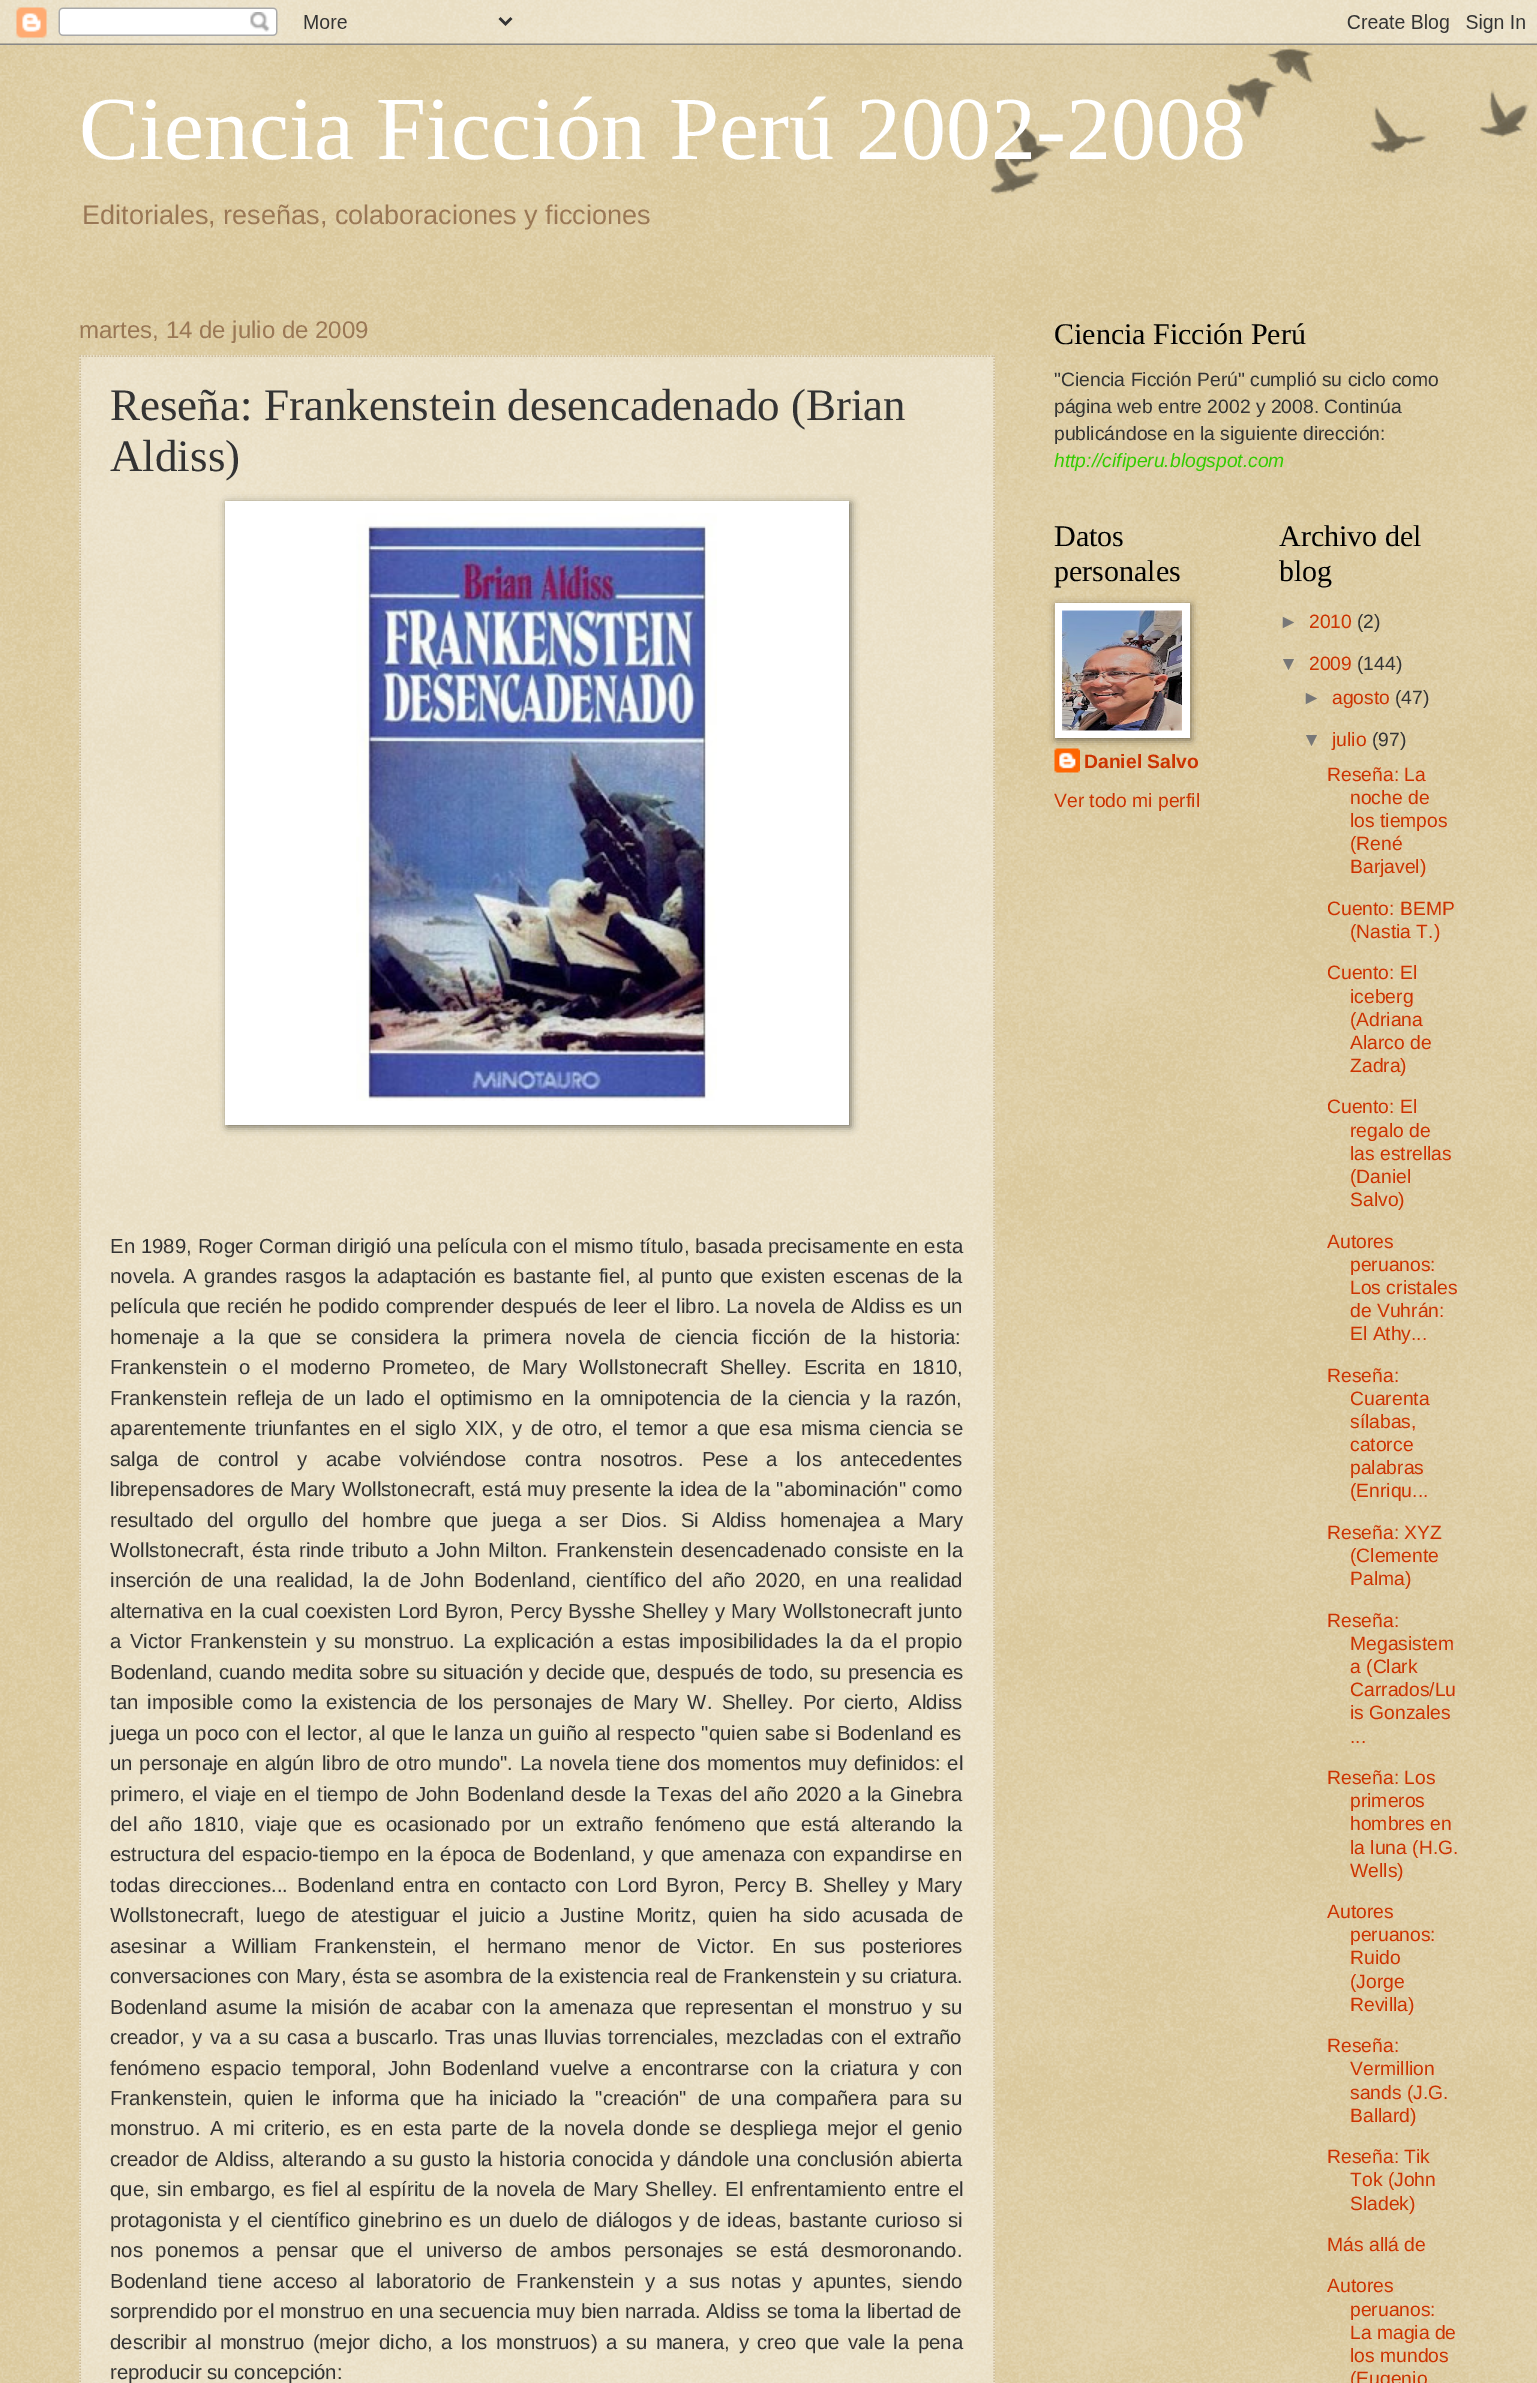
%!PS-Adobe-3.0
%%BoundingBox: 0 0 1537 2383
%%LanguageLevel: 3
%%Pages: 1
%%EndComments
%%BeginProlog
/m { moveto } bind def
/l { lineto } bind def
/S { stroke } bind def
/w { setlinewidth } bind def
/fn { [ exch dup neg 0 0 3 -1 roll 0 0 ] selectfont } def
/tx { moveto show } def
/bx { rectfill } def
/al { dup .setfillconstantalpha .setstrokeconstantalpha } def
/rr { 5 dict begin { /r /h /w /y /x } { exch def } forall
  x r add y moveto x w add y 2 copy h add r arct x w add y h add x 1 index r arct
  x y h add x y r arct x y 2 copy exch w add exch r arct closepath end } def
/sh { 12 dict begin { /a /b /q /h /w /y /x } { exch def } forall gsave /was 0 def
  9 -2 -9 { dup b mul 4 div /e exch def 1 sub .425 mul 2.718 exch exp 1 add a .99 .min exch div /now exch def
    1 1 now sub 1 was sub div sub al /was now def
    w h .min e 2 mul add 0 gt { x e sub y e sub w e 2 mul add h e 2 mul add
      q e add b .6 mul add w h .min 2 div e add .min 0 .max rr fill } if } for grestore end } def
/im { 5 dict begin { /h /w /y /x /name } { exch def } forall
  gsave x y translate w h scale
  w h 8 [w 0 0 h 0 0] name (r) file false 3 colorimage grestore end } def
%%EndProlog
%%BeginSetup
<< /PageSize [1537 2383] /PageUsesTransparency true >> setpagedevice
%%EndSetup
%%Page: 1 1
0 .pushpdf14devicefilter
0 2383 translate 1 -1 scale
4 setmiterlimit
0.753 0.631 0.329 setrgbcolor
0 0 1537 2383 bx
(image0.raw) 0 0 1537 2383 im
(image1.raw) 0 0 1537 45 im
(image2.raw) 990 48 539 146 im
/LiberationSerif-Regular 90 fn
1 setgray
(Ciencia Ficción Perú 2002-2008) 79 159 tx
/LiberationSans-Regular 27.05 fn
0.6 0.467 0.333 setrgbcolor
(Editoriales, reseñas, colaboraciones y ficciones) 82 224 tx
/LiberationSans-Regular 24 fn
(martes, 14 de julio de 2009) 79 338 tx
0.4 al
1 setgray
79 355 916 2028 bx
1 al
0.8 0.733 0.6 setrgbcolor
1.5 w
[1.5 1.5] 0 setdash
79.5 356 m 994.5 356 l S
994 355.5 m 994 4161 l S
80 355.5 m 80 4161 l S
/LiberationSerif-Regular 45 fn
0.2 setgray
(Reseña: Frankenstein desencadenado \(Brian) 110 420 tx
(Aldiss\)) 110 471 tx
0 setgray
227 503 624 624 0 4 0.5 sh
1 setgray
225 501 624 624 bx
(image3.raw) 356 513 361 588 im
/LiberationSans-Regular 20.3 fn
0.2 setgray
110 1253 m 0.4 0 32 (En 1989, Roger Corman dirigió una película con el mismo título, basada precisamente en esta) widthshow
110 1283 m 2 0 32 (novela. A grandes rasgos la adaptación es bastante fiel, al punto que existen escenas de la) widthshow
110 1313 m 1 0 32 (película que recién he podido comprender después de leer el libro.) widthshow
726 1313 m 1 0 32 (La novela de Aldiss es un) widthshow
110 1344 m 8.25 0 32 (homenaje a la que se considera la primera novela de ciencia ficción de la historia:) widthshow
110 1374 m 6.25 0 32 (Frankenstein o el moderno Prometeo, de Mary Wollstonecraft Shelley. Escrita en 1810,) widthshow
110 1405 m 4 0 32 (Frankenstein refleja de un lado el optimismo en la omnipotencia de la ciencia y la razón,) widthshow
110 1435 m 3.1 0 32 (aparentemente triunfantes en el siglo XIX, y de otro, el temor a que esa misma ciencia se) widthshow
110 1466 m 12.75 0 32 (salga de control y acabe volviéndose contra nosotros. Pese a los antecedentes) widthshow
110 1496 m 0.9 0 32 (librepensadores de Mary Wollstonecraft, está muy presente la idea de la "abominación" como) widthshow
110 1527 m 7.75 0 32 (resultado del orgullo del hombre que juega a ser Dios. Si Aldiss homenajea a Mary) widthshow
110 1557 m 2.5 0 32 (Wollstonecraft, ésta rinde tributo a John Milton.) widthshow
556 1557 m 2.5 0 32 (Frankenstein desencadenado consiste en la) widthshow
110 1587 m 3.75 0 32 (inserción de una realidad, la de John Bodenland, científico del año 2020, en una realidad) widthshow
110 1618 m 0.9 0 32 (alternativa en la cual coexisten Lord Byron, Percy Bysshe Shelley y Mary Wollstonecraft junto) widthshow
110 1648 m 2.75 0 32 (a Victor Frankenstein y su monstruo. La explicación a estas imposibilidades la da el propio) widthshow
110 1679 m 0.5 0 32 (Bodenland, cuando medita sobre su situación y decide que, después de todo, su presencia es) widthshow
110 1709 m 3.6 0 32 (tan imposible como la existencia de los personajes de Mary W. Shelley. Por cierto, Aldiss) widthshow
110 1740 m 0.9 0 32 (juega un poco con el lector, al que le lanza un guiño al respecto "quien sabe si Bodenland es) widthshow
110 1770 m 1.25 0 32 (un personaje en algún libro de otro mundo".) widthshow
520 1770 m 1.25 0 32 (La novela tiene dos momentos muy definidos: el) widthshow
110 1801 m 1.75 0 32 (primero, el viaje en el tiempo de John Bodenland desde la Texas del año 2020 a la Ginebra) widthshow
110 1831 m 5.6 0 32 (del año 1810, viaje que es ocasionado por un extraño fenómeno que está alterando la) widthshow
110 1861 m 1.75 0 32 (estructura del espacio-tiempo en la época de Bodenland, y que amenaza con expandirse en) widthshow
110 1892 m 3.25 0 32 (todas direcciones... Bodenland entra en contacto con Lord Byron, Percy B. Shelley y Mary) widthshow
110 1922 m 5.9 0 32 (Wollstonecraft, luego de atestiguar el juicio a Justine Moritz, quien ha sido acusada de) widthshow
110 1953 m 11.25 0 32 (asesinar a William Frankenstein, el hermano menor de Victor. En sus posteriores) widthshow
110 1983 m 0.25 0 32 (conversaciones con Mary, ésta se asombra de la existencia real de Frankenstein y su criatura.) widthshow
110 2014 m 3.6 0 32 (Bodenland asume la misión de acabar con la amenaza que representan el monstruo y su) widthshow
110 2044 m 2 0 32 (creador, y va a su casa a buscarlo.) widthshow
445 2044 m 1.75 0 32 (Tras unas lluvias torrenciales, mezcladas con el extraño) widthshow
110 2075 m 5.25 0 32 (fenómeno espacio temporal, John Bodenland vuelve a encontrarse con la criatura y con) widthshow
110 2105 m 5.4 0 32 (Frankenstein, quien le informa que ha iniciado la "creación" de una compañera para su) widthshow
110 2135 m 3.9 0 32 (monstruo. A mi criterio, es en esta parte de la novela donde se despliega mejor el genio) widthshow
110 2166 m 1.3 0 32 (creador de Aldiss, alterando a su gusto la historia conocida y dándole una conclusión abierta) widthshow
110 2196 m 1.75 0 32 (que, sin embargo, es fiel al espíritu de la novela de Mary Shelley.) widthshow
725 2196 m 2 0 32 (El enfrentamiento entre el) widthshow
110 2227 m 2 0 32 (protagonista y el científico ginebrino es un duelo de diálogos y de ideas, bastante curioso si) widthshow
110 2257 m 7.1 0 32 (nos ponemos a pensar que el universo de ambos personajes se está desmoronando.) widthshow
110 2288 m 5.5 0 32 (Bodenland tiene acceso al laboratorio de Frankenstein y a sus notas y apuntes, siendo) widthshow
110 2318 m 0.3 0 32 (sorprendido por el monstruo en una secuencia muy bien narrada. Aldiss se toma la libertad de) widthshow
110 2349 m 2.9 0 32 (describir al monstruo \(mejor dicho, a los monstruos\) a su manera, y creo que vale la pena) widthshow
(reproducir su concepción:) 110 2379 tx
/LiberationSerif-Regular 30 fn
0 setgray
(Ciencia Ficción Perú) 1054 344 tx
/LiberationSans-Regular 19.3 fn
0.2 setgray
("Ciencia Ficción Perú" cumplió su ciclo como) 1054 386 tx
(página web entre 2002 y 2008. Continúa) 1054 413 tx
(publicándose en la siguiente dirección:) 1054 440 tx
/LiberationSans-Italic 19.3 fn
0.2 0.8 0 setrgbcolor
(http://cifiperu.blogspot.com) 1054 467 tx
/LiberationSerif-Regular 30 fn
0 setgray
(Datos) 1054 546 tx
(personales) 1054 581 tx
(image5.raw) 1054 748 26 25 im
1056 605 135 135 0 4 0.5 sh
1 setgray
1055 603 135 135 bx
(image4.raw) 1062 610 120 121 im
/LiberationSans-Bold 19.3 fn
0.8 0.2 0 setrgbcolor
(Daniel Salvo) 1084 768 tx
/LiberationSans-Regular 19.3 fn
(Ver todo mi perfil) 1054 807 tx
/LiberationSerif-Regular 30 fn
0 setgray
(Archivo del) 1279 546 tx
(blog) 1279 581 tx
/LiberationSans-Regular 19.3 fn
0.467 setgray
(►) 1279 628 tx
0.8 0.2 0 setrgbcolor
(2010) 1309 628 tx
0.2 setgray
(\(2\)) 1357 628 tx
0.467 setgray
(▼) 1279 670 tx
0.8 0.2 0 setrgbcolor
(2009) 1309 670 tx
0.2 setgray
(\(144\)) 1357 670 tx
0.467 setgray
(►) 1302 704 tx
0.8 0.2 0 setrgbcolor
(agosto) 1332 704 tx
0.2 setgray
(\(47\)) 1395 704 tx
0.467 setgray
(▼) 1302 746 tx
0.8 0.2 0 setrgbcolor
(julio) 1332 746 tx
0.2 setgray
(\(97\)) 1372 746 tx
0.8 0.2 0 setrgbcolor
(Reseña: La) 1327 781 tx
(noche de) 1350 804 tx
(los tiempos) 1350 827 tx
(\(René) 1350 850 tx
(Barjavel\)) 1350 873 tx
(Cuento: BEMP) 1327 915 tx
(\(Nastia T.\)) 1350 938 tx
(Cuento: El) 1327 979 tx
(iceberg) 1350 1003 tx
(\(Adriana) 1350 1026 tx
(Alarco de) 1350 1049 tx
(Zadra\)) 1350 1072 tx
(Cuento: El) 1327 1113 tx
(regalo de) 1350 1137 tx
(las estrellas) 1350 1160 tx
(\(Daniel) 1350 1183 tx
(Salvo\)) 1350 1206 tx
(Autores) 1327 1248 tx
(peruanos:) 1350 1271 tx
(Los cristales) 1350 1294 tx
(de Vuhrán:) 1350 1317 tx
(El Athy...) 1350 1340 tx
(Reseña:) 1327 1382 tx
(Cuarenta) 1350 1405 tx
(sílabas,) 1350 1428 tx
(catorce) 1350 1451 tx
(palabras) 1350 1474 tx
(\(Enriqu...) 1350 1497 tx
(Reseña: XYZ) 1327 1539 tx
(\(Clemente) 1350 1562 tx
(Palma\)) 1350 1585 tx
(Reseña:) 1327 1627 tx
(Megasistem) 1350 1650 tx
(a \(Clark) 1350 1673 tx
(Carrados/Lu) 1350 1696 tx
(is Gonzales) 1350 1719 tx
(...) 1350 1743 tx
(Reseña: Los) 1327 1784 tx
(primeros) 1350 1807 tx
(hombres en) 1350 1830 tx
(la luna \(H.G.) 1350 1854 tx
(Wells\)) 1350 1877 tx
(Autores) 1327 1918 tx
(peruanos:) 1350 1941 tx
(Ruido) 1350 1964 tx
(\(Jorge) 1350 1988 tx
(Revilla\)) 1350 2011 tx
(Reseña:) 1327 2052 tx
(Vermillion) 1350 2075 tx
(sands \(J.G.) 1350 2099 tx
(Ballard\)) 1350 2122 tx
(Reseña: Tik) 1327 2163 tx
(Tok \(John) 1350 2186 tx
(Sladek\)) 1350 2210 tx
(Más allá de) 1327 2251 tx
(Autores) 1327 2292 tx
(peruanos:) 1350 2316 tx
(La magia de) 1350 2339 tx
(los mundos) 1350 2362 tx
(\(Eugenio) 1350 2385 tx
.poppdf14devicefilter showpage
%%EOF
